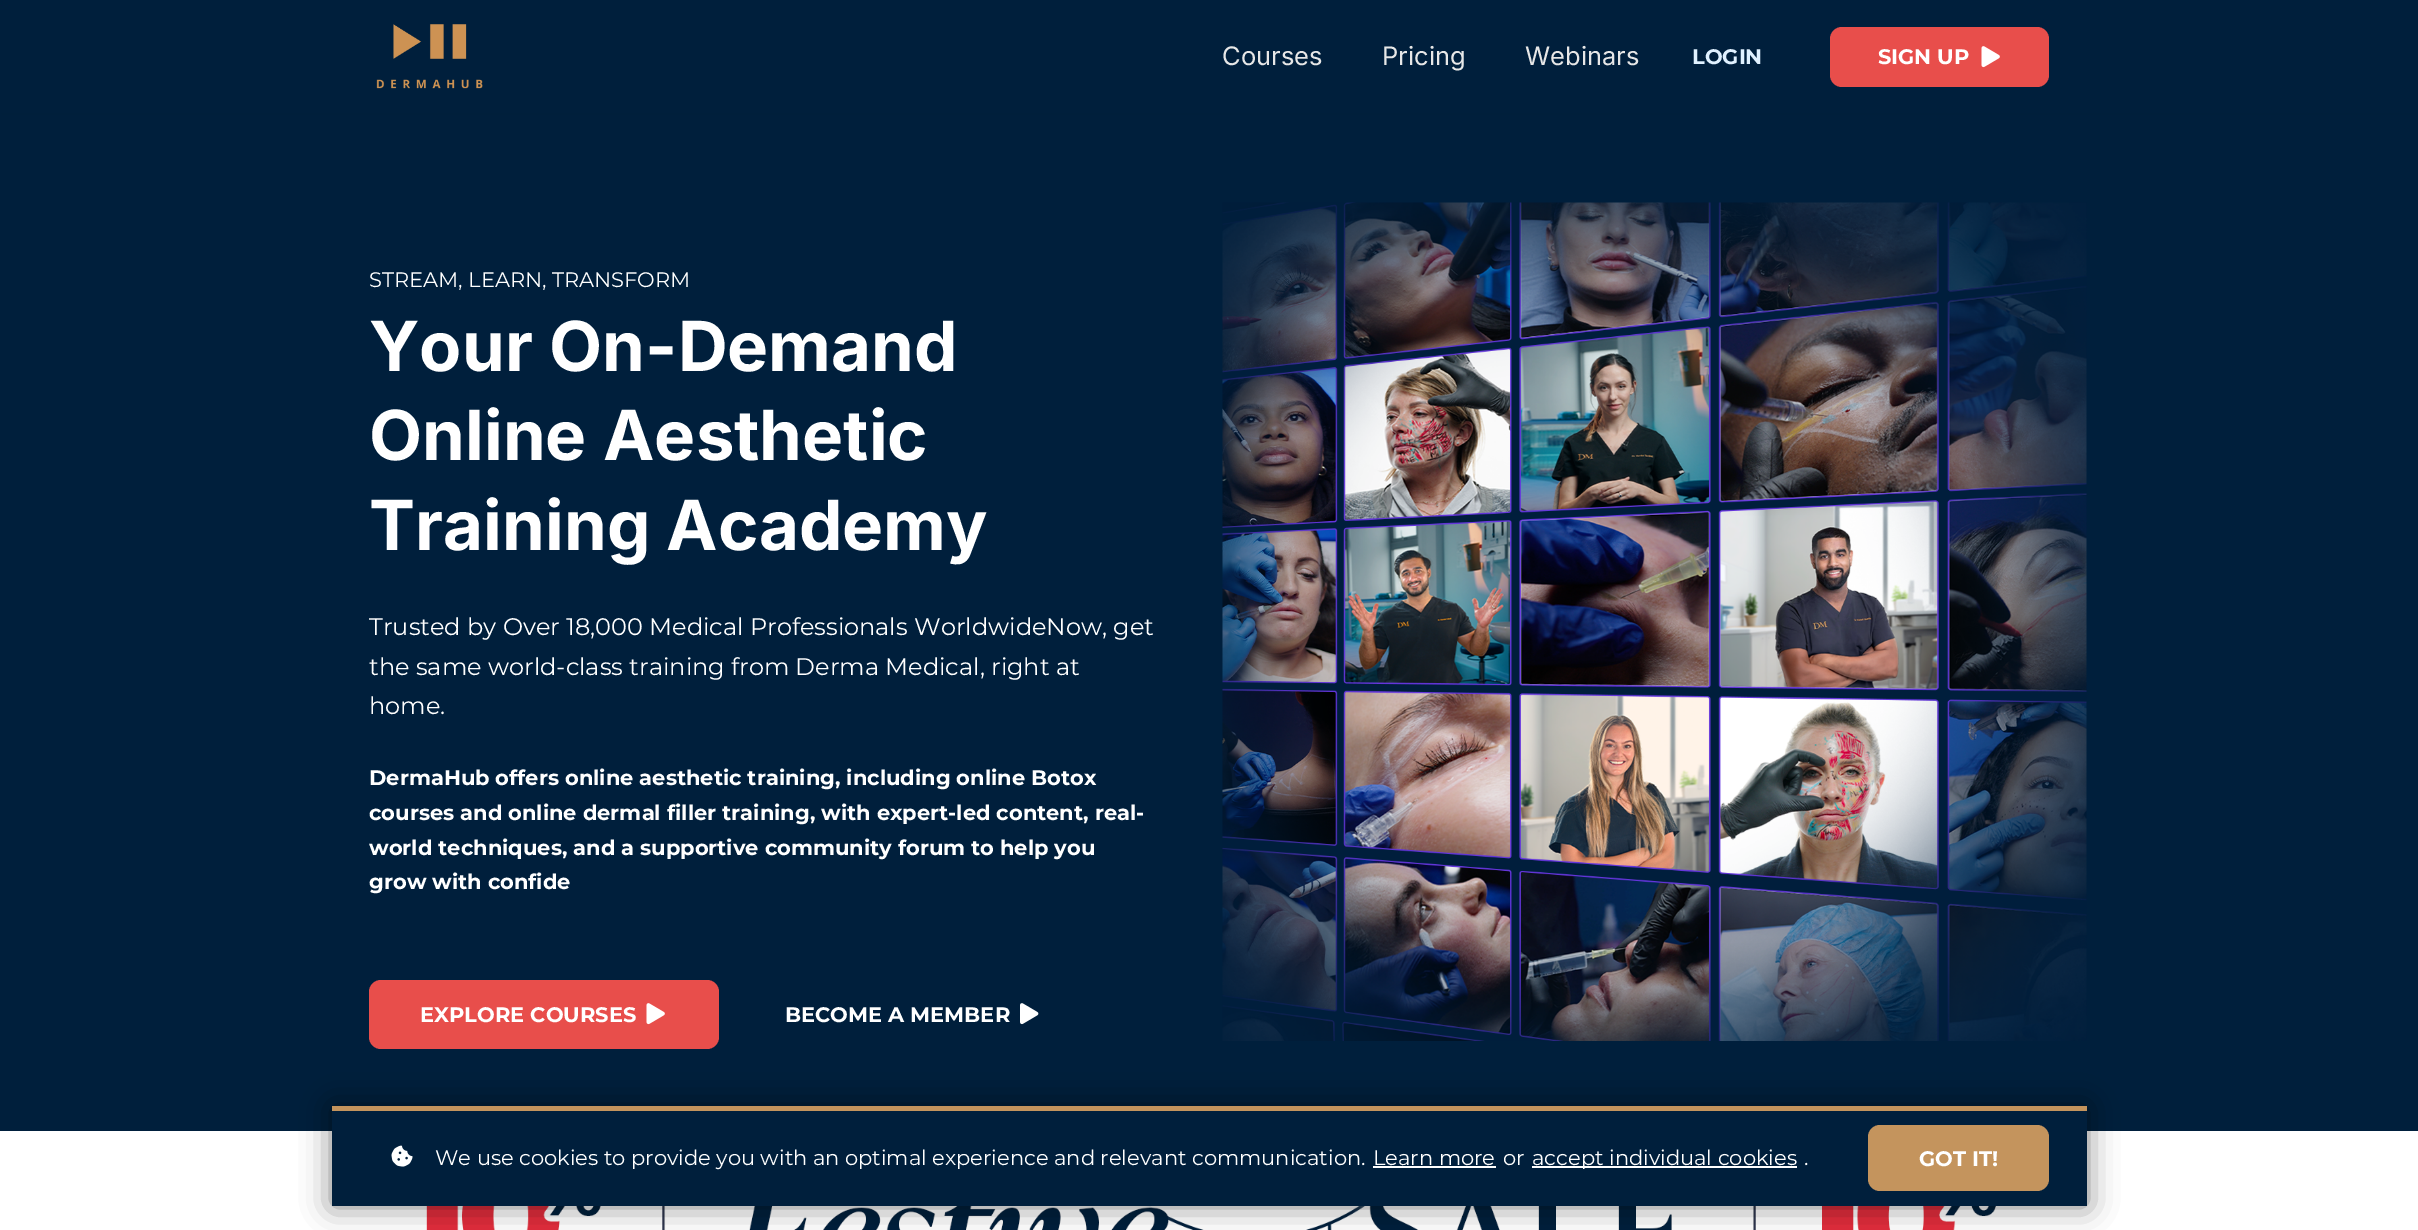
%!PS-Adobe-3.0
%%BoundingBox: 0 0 2418 1230
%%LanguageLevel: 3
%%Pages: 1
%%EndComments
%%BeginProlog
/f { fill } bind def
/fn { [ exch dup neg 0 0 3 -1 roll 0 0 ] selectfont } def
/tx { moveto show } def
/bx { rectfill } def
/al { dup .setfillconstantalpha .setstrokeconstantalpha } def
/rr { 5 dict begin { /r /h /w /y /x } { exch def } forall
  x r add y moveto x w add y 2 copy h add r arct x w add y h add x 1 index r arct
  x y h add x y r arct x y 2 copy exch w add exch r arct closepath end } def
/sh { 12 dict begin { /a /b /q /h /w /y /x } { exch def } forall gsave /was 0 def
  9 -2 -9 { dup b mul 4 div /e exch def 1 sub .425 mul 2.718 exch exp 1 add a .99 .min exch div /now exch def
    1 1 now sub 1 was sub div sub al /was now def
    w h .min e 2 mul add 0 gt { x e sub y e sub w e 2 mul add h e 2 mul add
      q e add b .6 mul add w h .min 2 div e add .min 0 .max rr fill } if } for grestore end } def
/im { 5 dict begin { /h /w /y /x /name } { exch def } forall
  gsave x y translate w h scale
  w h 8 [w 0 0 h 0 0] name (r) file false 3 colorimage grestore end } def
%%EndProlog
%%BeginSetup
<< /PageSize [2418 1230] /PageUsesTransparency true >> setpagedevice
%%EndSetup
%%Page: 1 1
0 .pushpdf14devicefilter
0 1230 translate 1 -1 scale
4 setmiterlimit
1 setgray
0 0 2418 1230 bx
0 0.122 0.235 setrgbcolor
0 113 2418 1018 bx
0 setgray
0 0 2418 113 0 11 0.05 sh
0 0.122 0.235 setrgbcolor
0 0 2418 113 bx
(image0.raw) 376 24 107 65 im
/Inter-Regular 25.5 fn
0.906 setgray
(Courses) 1222 65 tx
(Pricing) 1382 65 tx
(Webinars) 1525 65 tx
/Montserrat-Bold 21 fn
0.878 0.945 1 setrgbcolor
(LOGIN) 1692 64 tx
0.91 0.306 0.294 setrgbcolor
1830 27 219 60 12 rr f
1 setgray
(SIGN UP) 1878 64 tx
(image1.raw) 1981 46 19 22 im
/Montserrat-Regular 21 fn
(STREAM, LEARN, TRANSFORM) 369 287 tx
/Inter-Bold 69 fn
(Your On-Demand) 369 371 tx
(Online Aesthetic) 369 460 tx
(Training Academy) 369 550 tx
/Montserrat-Regular 24 fn
(Trusted by Over 18,000 Medical Professionals WorldwideNow, get) 369 635 tx
(the same world-class training from Derma Medical, right at) 369 675 tx
(home.) 369 714 tx
/Montserrat-Bold 21 fn
(DermaHub offers online aesthetic training, including online Botox) 369 785 tx
(courses and online dermal filler training, with expert-led content, real-) 369 820 tx
(world techniques, and a supportive community forum to help you) 369 855 tx
(grow with confide) 369 889 tx
0.91 0.306 0.294 setrgbcolor
369 980 350 69 12 rr f
1 setgray
(EXPLORE COURSES) 420 1022 tx
(image1.raw) 646 1003 19 22 im
(BECOME A MEMBER) 785 1022 tx
(image2.raw) 1020 1003 19 22 im
(image3.raw) 1222 202 865 839 im
(image4.raw) 406 1206 1591 24 im
0 setgray
332 1106 1755 100 0 15 0.5 sh
0 0.122 0.235 setrgbcolor
332 1111 1755 95 bx
0.769 0.58 0.365 setrgbcolor
332 1106 1755 5 bx
(image5.raw) 391 1145 22 22 im
/Montserrat-Regular 21 fn
1 setgray
(We use cookies to provide you with an optimal experience and relevant communication.) 435 1165 tx
(Learn more) 1373 1165 tx
1373 1166 123 2 bx
(or) 1503 1165 tx
1532 1166 265 2 bx
(accept individual cookies) 1532 1165 tx
(.) 1804 1165 tx
0.769 0.58 0.365 setrgbcolor
1868 1125 181 66 12 rr f
/Montserrat-Bold 21 fn
1 setgray
(GOT IT!) 1919 1166 tx
.poppdf14devicefilter showpage
%%EOF
